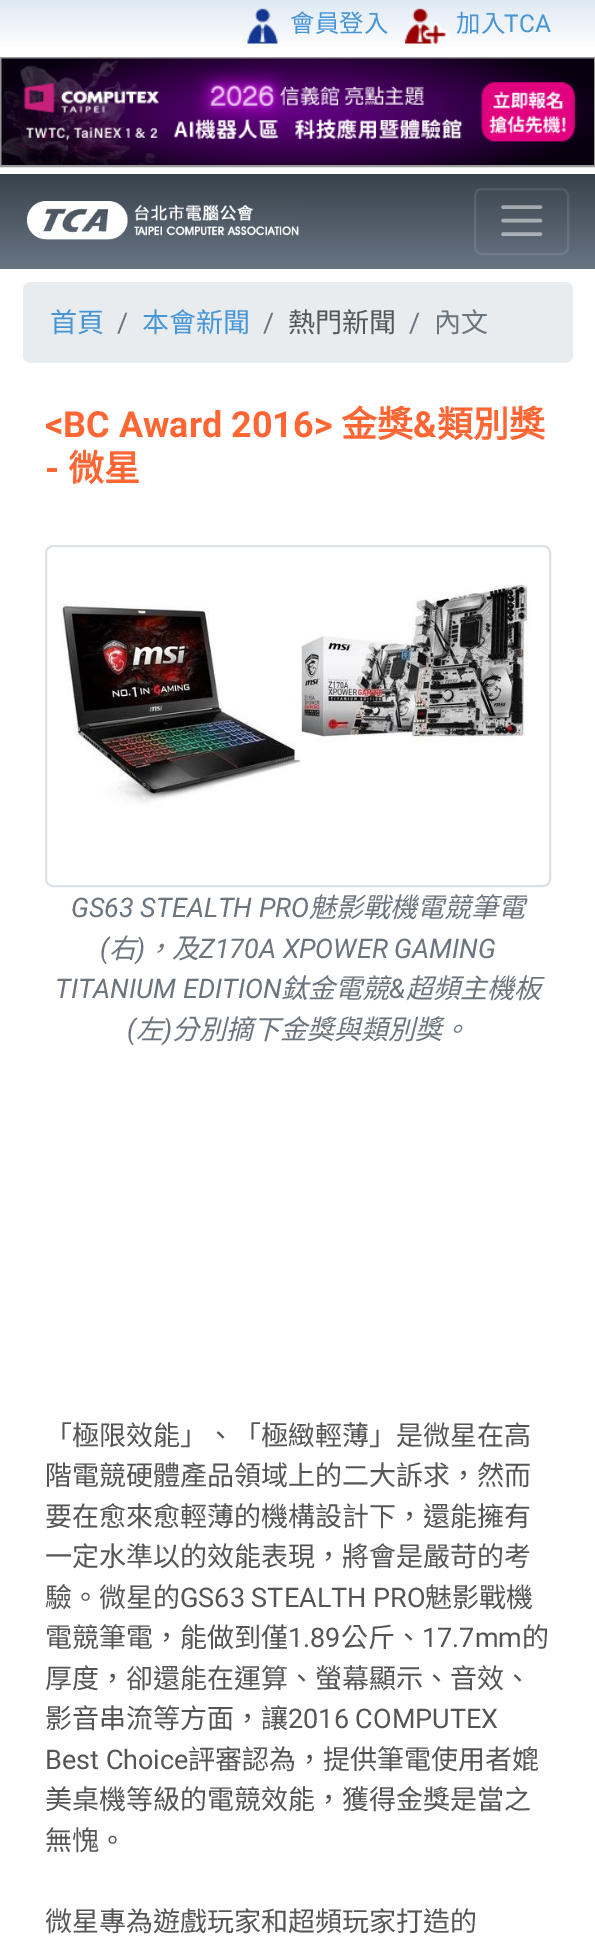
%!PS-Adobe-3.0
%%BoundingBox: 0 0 595 1953
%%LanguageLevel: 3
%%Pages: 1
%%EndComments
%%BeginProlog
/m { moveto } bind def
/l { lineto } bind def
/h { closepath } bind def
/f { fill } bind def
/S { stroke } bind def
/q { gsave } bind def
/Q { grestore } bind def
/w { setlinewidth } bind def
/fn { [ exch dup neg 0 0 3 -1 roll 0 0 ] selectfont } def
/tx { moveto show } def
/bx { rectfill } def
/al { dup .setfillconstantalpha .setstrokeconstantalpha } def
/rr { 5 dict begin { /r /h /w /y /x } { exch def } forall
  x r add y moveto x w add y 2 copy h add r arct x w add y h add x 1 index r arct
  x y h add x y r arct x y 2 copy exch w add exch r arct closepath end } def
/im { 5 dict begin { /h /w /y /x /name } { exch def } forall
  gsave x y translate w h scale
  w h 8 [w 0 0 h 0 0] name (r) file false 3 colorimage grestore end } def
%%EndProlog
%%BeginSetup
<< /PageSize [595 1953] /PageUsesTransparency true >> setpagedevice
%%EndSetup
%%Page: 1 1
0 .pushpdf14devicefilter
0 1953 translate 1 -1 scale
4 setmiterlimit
1 setgray
0 0 595 1953 bx
q 0 0 m 595 0 l 595 47 l 0 47 l h clip newpath
<< /ShadingType 2 /ColorSpace /DeviceRGB /Coords [298 0 298 51] /Extend [true true] /Function << /FunctionType 2 /Domain [0 1] /C0 [0.875 0.914 0.953] /C1 [1 1 1] /N 1 >> >> shfill Q
(image0.raw) 247 8 31 36 im
/NotoSansCJKTC-Regular 24.5 fn
0.275 0.584 0.839 setrgbcolor
(會員登入) 290 32 tx
(image1.raw) 405 8 44 36 im
(加入) 456 32 tx
/Roboto-Regular 24.5 fn
(TCA) 504 32 tx
0.6 setgray
2 w
1 58 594 108 rectstroke
(image2.raw) 1 58 593 107 im
q 0 174 m 595 174 l 595 269 l 0 269 l h clip newpath
<< /ShadingType 2 /ColorSpace /DeviceRGB /Coords [298 174 298 269] /Extend [true true] /Function << /FunctionType 2 /Domain [0 1] /C0 [0.224 0.259 0.298] /C1 [0.408 0.459 0.514] /N 1 >> >> shfill Q
(image3.raw) 27 201 272 39 im
0.1 al
1 setgray
475 189 93 65 7 rr S
0.5 al
3.4 w
1 setlinecap
503 207 m 540.5 207 l 503 220.5 m 540.5 220.5 l 503 234 m 540.5 234 l S
1 al
0.914 0.925 0.937 setrgbcolor
23 282 550 81 8 rr f
/NotoSansCJKTC-Regular 27 fn
0.275 0.584 0.839 setrgbcolor
(首頁) 50 332 tx
/Roboto-Regular 27 fn
0.424 0.459 0.49 setrgbcolor
(/) 117 332 tx
/NotoSansCJKTC-Regular 27 fn
0.275 0.584 0.839 setrgbcolor
(本會新聞) 142 332 tx
/Roboto-Regular 27 fn
0.424 0.459 0.49 setrgbcolor
(/) 263 332 tx
/NotoSansCJKTC-Regular 27 fn
0.333 setgray
(熱門新聞) 288 332 tx
/Roboto-Regular 27 fn
0.424 0.459 0.49 setrgbcolor
(/) 409 332 tx
/NotoSansCJKTC-Regular 27 fn
(內文) 434 332 tx
/Roboto-Bold 36 fn
1 0.4 0.2 setrgbcolor
(<BC Award 2016>) 45 437 tx
/NotoSansCJKTC-Bold 36 fn
(金獎) 341 437 tx
/Roboto-Bold 36 fn
(&) 413 437 tx
/NotoSansCJKTC-Bold 36 fn
(類別獎) 437 437 tx
/Roboto-Bold 36 fn
(-) 45 481 tx
/NotoSansCJKTC-Bold 36 fn
(微星) 68 481 tx
0.871 0.886 0.902 setrgbcolor
2 w
0 setlinecap
46 546 504 340 7 rr S
(image4.raw) 60 583 469 223 im
/Roboto-Italic 27 fn
0.424 0.459 0.49 setrgbcolor
(GS63 STEALTH PRO) 71 917 tx
/NotoSansCJKTC-Italic 27 fn
(魅影戰機電競筆電) 309 917 tx
/Roboto-Italic 27 fn
(\() 100 958 tx
/NotoSansCJKTC-Italic 27 fn
(右) 109 958 tx
/Roboto-Italic 27 fn
(\)) 136 958 tx
/NotoSansCJKTC-Italic 27 fn
(，及) 145 958 tx
/Roboto-Italic 27 fn
(Z170A XPOWER GAMING) 199 958 tx
(TITANIUM EDITION) 55 998 tx
/NotoSansCJKTC-Italic 27 fn
(鈦金電競) 281 998 tx
/Roboto-Italic 27 fn
(&) 389 998 tx
/NotoSansCJKTC-Italic 27 fn
(超頻主機板) 406 998 tx
/Roboto-Italic 27 fn
(\() 127 1039 tx
/NotoSansCJKTC-Italic 27 fn
(左) 136 1039 tx
(分別摘下金獎與類別獎。) 172 1039 tx
/Roboto-Italic 27 fn
(\)) 163 1039 tx
/NotoSansCJKTC-Regular 27 fn
0.333 setgray
(「極限效能」、「極緻輕薄」是微星在高) 45 1445 tx
(階電競硬體產品領域上的二大訴求，然而) 45 1485 tx
(要在愈來愈輕薄的機構設計下，還能擁有) 45 1526 tx
(一定水準以的效能表現，將會是嚴苛的考) 45 1566 tx
(驗。微星的) 45 1607 tx
/Roboto-Regular 27 fn
(GS63 STEALTH PRO) 180 1607 tx
/NotoSansCJKTC-Regular 27 fn
(魅影戰機) 425 1607 tx
(電競筆電，能做到僅) 45 1647 tx
/Roboto-Regular 27 fn
(1.89) 288 1647 tx
/NotoSansCJKTC-Regular 27 fn
(公斤、) 341 1647 tx
/Roboto-Regular 27 fn
(17.7mm) 422 1647 tx
/NotoSansCJKTC-Regular 27 fn
(的) 522 1647 tx
(厚度，卻還能在運算、螢幕顯示、音效、) 45 1688 tx
(影音串流等方面，讓) 45 1728 tx
/Roboto-Regular 27 fn
(2016 COMPUTEX) 288 1728 tx
(Best Choice) 45 1769 tx
/NotoSansCJKTC-Regular 27 fn
(評審認為，提供筆電使用者媲) 188 1769 tx
(美桌機等級的電競效能，獲得金獎是當之) 45 1809 tx
(無愧。) 45 1850 tx
(微星專為遊戲玩家和超頻玩家打造的) 45 1931 tx
.poppdf14devicefilter showpage
%%EOF
